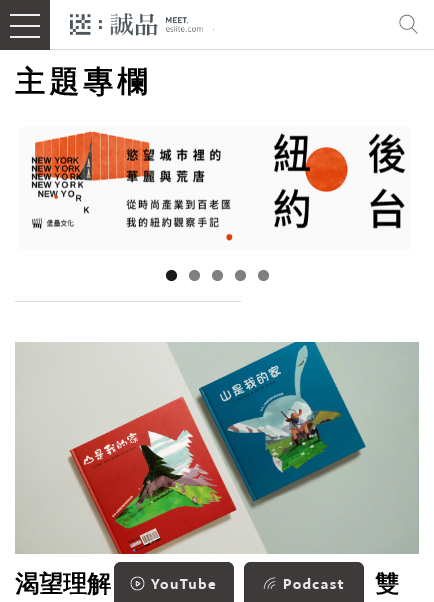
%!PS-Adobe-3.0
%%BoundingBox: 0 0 434 602
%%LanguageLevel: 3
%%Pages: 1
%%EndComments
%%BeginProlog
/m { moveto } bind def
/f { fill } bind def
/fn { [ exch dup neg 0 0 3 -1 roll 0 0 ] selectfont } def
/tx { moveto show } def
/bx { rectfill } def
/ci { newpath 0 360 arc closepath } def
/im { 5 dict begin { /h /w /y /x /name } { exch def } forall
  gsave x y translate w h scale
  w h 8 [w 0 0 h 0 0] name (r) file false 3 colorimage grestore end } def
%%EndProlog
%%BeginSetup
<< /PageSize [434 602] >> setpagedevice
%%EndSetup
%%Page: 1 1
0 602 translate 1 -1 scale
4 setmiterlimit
1 setgray
0 0 434 602 bx
0.847 setgray
50 49 384 1 bx
0.243 0.227 0.224 setrgbcolor
0 0 50 50 bx
0.925 0.941 0.945 setrgbcolor
10 14 30 2 bx
10 25 30 2 bx
10 36 30 2 bx
(image0.raw) 70 13 133 23 im
(image1.raw) 213 28 1 3 im
(image2.raw) 399 14 19 20 im
/WenQuanYiZenHei-Bold 30 fn
0 setgray
15 92 m 4 0 (主題專欄) ashow
(image3.raw) 19 127 392 123 im
0.102 setgray
171.5 275.5 5.5 ci f
0.502 setgray
194.5 275.5 5.5 ci f
217.5 275.5 5.5 ci f
240.5 275.5 5.5 ci f
263.5 275.5 5.5 ci f
0.867 setgray
15 301 226 1 bx
(image4.raw) 114 562 120 40 im
(image5.raw) 244 562 120 40 im
(image6.raw) 15 342 404 212 im
/WenQuanYiZenHei-Bold 24 fn
0 setgray
(渴望理解) 15 592 tx
(雙) 375 592 tx
showpage
%%EOF
